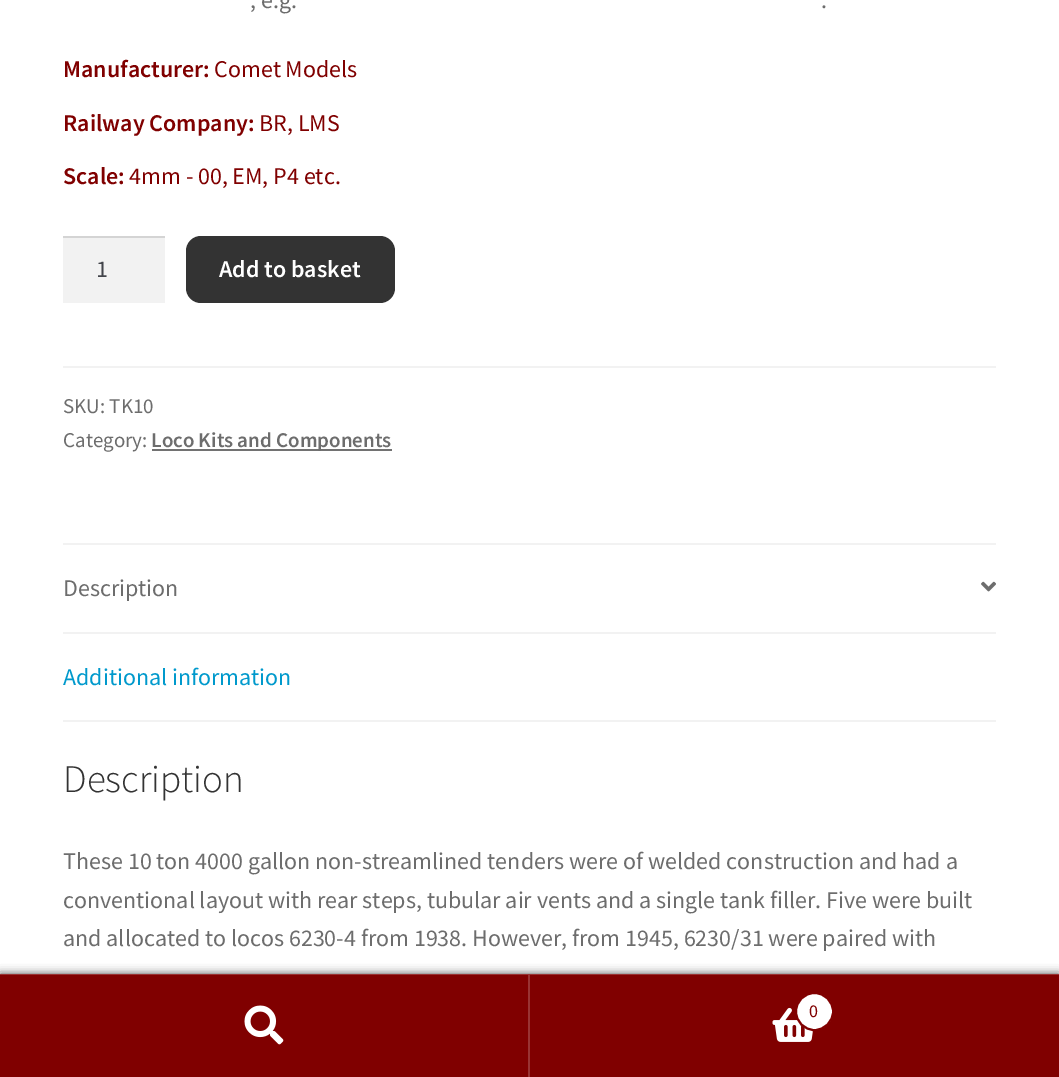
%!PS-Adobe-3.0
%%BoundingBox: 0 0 1059 1077
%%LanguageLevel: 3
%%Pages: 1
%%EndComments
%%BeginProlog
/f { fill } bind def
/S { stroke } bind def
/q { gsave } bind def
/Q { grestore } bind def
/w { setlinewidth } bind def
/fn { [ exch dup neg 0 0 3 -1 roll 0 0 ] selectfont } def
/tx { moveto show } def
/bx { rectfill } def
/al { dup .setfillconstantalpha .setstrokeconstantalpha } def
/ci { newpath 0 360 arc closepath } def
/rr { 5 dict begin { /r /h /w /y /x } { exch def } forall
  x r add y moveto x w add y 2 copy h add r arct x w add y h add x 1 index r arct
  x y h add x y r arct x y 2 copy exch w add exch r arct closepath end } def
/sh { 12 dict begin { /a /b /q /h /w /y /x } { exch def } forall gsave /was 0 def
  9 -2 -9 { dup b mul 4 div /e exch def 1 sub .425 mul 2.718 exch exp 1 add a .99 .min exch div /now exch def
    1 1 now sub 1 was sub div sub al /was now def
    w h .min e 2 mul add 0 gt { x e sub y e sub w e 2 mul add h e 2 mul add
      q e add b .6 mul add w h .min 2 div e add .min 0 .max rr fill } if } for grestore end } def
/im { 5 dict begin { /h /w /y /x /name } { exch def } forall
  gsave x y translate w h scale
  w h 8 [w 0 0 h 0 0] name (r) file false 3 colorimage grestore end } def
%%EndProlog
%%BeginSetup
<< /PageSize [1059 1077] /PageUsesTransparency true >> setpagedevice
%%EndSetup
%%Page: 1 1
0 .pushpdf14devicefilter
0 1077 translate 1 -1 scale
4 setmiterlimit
1 setgray
0 0 1059 1077 bx
/SourceSansPro-Regular 24 fn
0.427 setgray
(, e.g.) 250 8 tx
(.) 821 8 tx
/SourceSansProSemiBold-SemiBold 24 fn
0.502 0 0 setrgbcolor
(Manufacturer:) 63 77 tx
/SourceSansPro-Regular 24 fn
(Comet Models) 214 77 tx
/SourceSansProSemiBold-SemiBold 24 fn
(Railway Company:) 63 131 tx
/SourceSansPro-Regular 24 fn
(BR, LMS) 259 131 tx
/SourceSansProSemiBold-SemiBold 24 fn
(Scale:) 63 184 tx
/SourceSansPro-Regular 24 fn
(4mm - 00, EM, P4 etc.) 129 184 tx
0.949 setgray
63 238 102 65 bx
0.831 setgray
63 236 102 2 bx
0.263 0.271 0.294 setrgbcolor
(1) 96 277 tx
0.2 setgray
186 236 209 67 15 rr f
/SourceSansProSemiBold-SemiBold 24 fn
1 setgray
(Add to basket) 219 277 tx
0.949 setgray
63 366 933 2 bx
/SourceSansPro-Regular 21 fn
0.427 setgray
(SKU: TK10) 63 413 tx
(Category:) 63 447 tx
0.447 setgray
152 449 240 2 bx
/SourceSansProSemiBold-SemiBold 21 fn
0.427 setgray
(Loco Kits and Components) 151 447 tx
0.949 setgray
63 543 933 2 bx
63 632 933 2 bx
/SourceSansPro-Regular 24 fn
0.427 setgray
(Description) 63 596 tx
(image0.raw) 981 581 15 11 im
0.949 setgray
63 720 933 2 bx
0 0.6 0.8 setrgbcolor
(Additional information) 63 685 tx
/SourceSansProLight-Light 39 fn
0.2 setgray
(Description) 63 792 tx
/SourceSansPro-Regular 24 fn
0.427 setgray
(These 10 ton 4000 gallon non-streamlined tenders were of welded construction and had a) 63 869 tx
(conventional layout with rear steps, tubular air vents and a single tank filler. Five were built) 63 908 tx
(and allocated to locos 6230-4 from 1938. However, from 1945, 6230/31 were paired with) 63 946 tx
0 setgray
0 974 1059 103 0 4.5 0.7 sh
0.6 0.2 0.2 setrgbcolor
0 974 1059 1 bx
0.502 0 0 setrgbcolor
0 975 528 102 bx
0.6 0.2 0.2 setrgbcolor
528 975 2 102 bx
(image1.raw) 244 1005 40 40 im
0.502 0 0 setrgbcolor
530 975 529 102 bx
(image2.raw) 772 1007 41 35 im
1 setgray
814.5 1011.5 18.5 ci q f Q
0.502 0 0 setrgbcolor
2 w
S
/SourceSansPro-Regular 18 fn
(0) 809 1017 tx
.poppdf14devicefilter showpage
%%EOF
